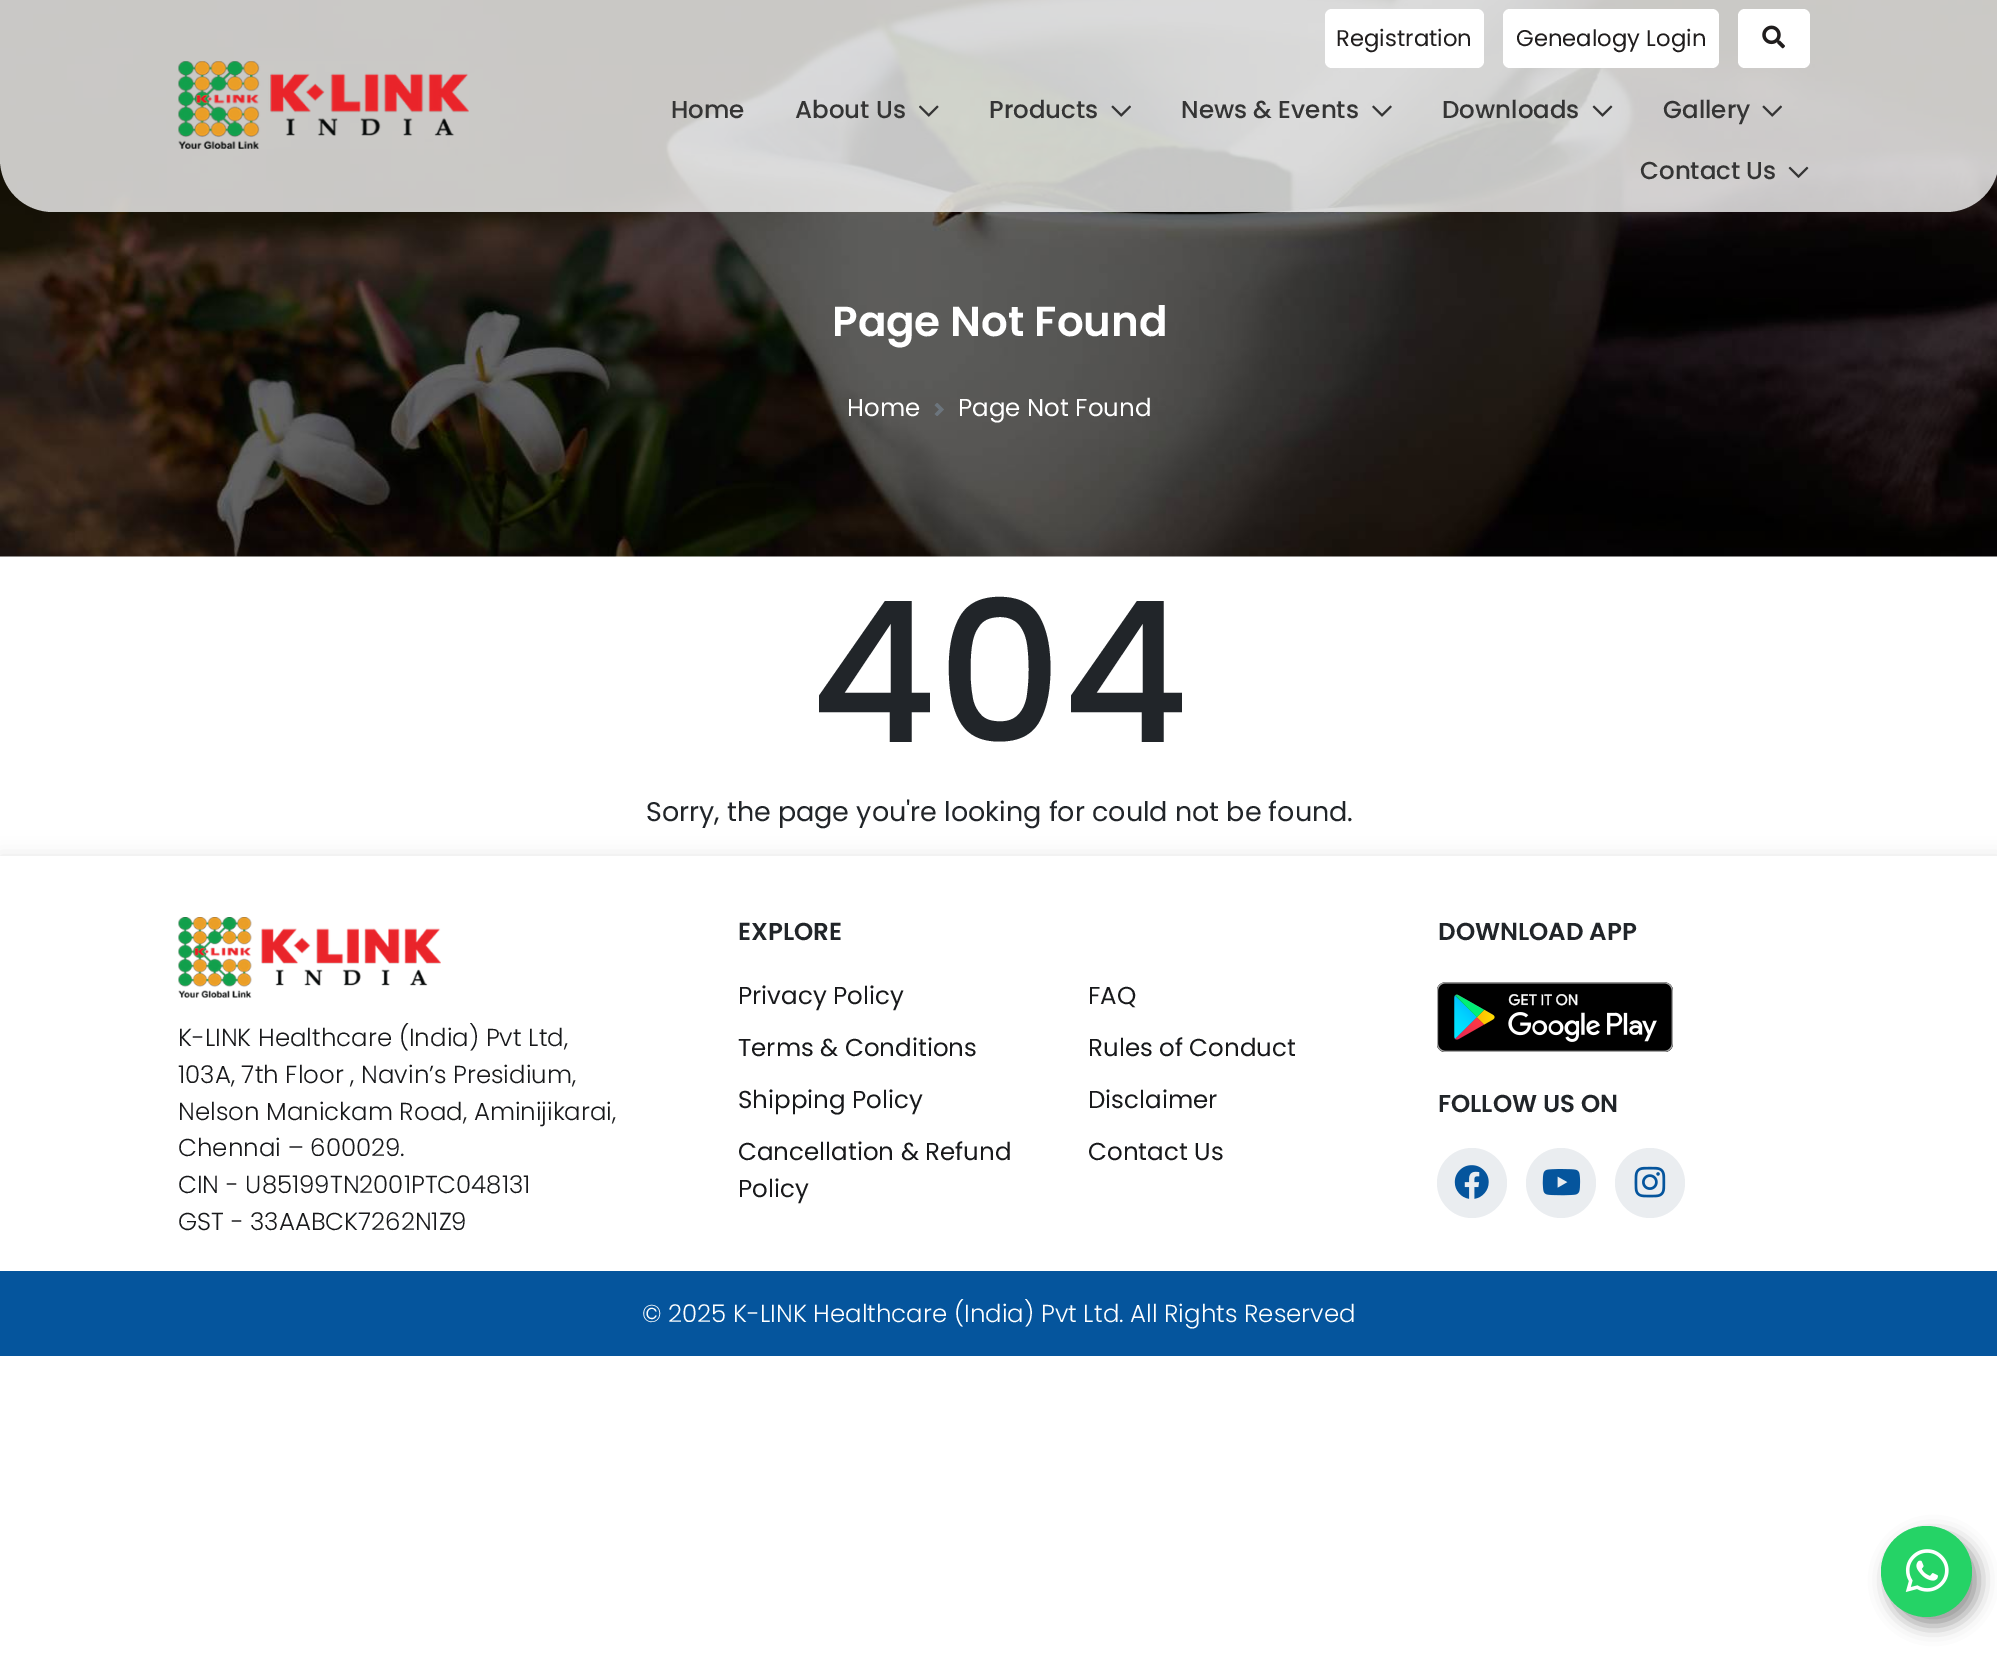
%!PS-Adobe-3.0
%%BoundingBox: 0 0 1997 1669
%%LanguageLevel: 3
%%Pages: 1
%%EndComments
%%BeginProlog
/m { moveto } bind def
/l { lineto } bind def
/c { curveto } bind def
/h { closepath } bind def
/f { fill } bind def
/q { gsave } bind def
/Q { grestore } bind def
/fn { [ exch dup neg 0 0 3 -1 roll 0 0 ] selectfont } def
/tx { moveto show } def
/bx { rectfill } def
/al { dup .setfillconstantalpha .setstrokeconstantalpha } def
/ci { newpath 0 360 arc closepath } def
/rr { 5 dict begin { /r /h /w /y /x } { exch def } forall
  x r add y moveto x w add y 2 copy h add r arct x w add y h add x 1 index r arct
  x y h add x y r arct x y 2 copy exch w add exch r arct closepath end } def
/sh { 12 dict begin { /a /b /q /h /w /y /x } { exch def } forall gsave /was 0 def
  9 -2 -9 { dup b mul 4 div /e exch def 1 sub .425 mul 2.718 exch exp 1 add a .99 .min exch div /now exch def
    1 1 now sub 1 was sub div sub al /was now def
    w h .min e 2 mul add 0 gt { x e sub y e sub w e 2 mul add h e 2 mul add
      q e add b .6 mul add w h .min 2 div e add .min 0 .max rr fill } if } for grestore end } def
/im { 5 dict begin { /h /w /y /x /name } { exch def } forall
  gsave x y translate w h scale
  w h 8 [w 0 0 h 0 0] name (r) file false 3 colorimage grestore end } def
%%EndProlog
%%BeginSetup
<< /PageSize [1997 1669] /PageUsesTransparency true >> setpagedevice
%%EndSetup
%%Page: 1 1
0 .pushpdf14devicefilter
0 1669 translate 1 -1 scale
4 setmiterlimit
1 setgray
0 0 1997 1669 bx
(image8.raw) 0 0 1997 557 im
0.77 al
0 0 m 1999 0 l 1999 159 l 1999 188.5 1975.5 212 1946 212 c 53 212 l 23.5 212 0 188.5 0 159 c h f
1 al
(image0.raw) 178 61 291 88 im
1325 9 159 59 7 rr f
/Poppins-Regular 22.75 fn
0.125 0.114 0.114 setrgbcolor
(Registration) 1336 46 tx
1 setgray
1503 9 216 59 7 rr f
0.125 0.114 0.114 setrgbcolor
(Genealogy Login) 1516 46 tx
1 setgray
1738 9 72 59 7 rr f
(image1.raw) 1762 25 23 24 im
/Poppins-Medium 24.5 fn
0.208 setgray
(Home) 671 118 tx
(About Us) 795 118 tx
(image2.raw) 919 105 20 12 im
(Products) 989 118 tx
(image3.raw) 1111 105 20 12 im
(News & Events) 1181 118 tx
(image4.raw) 1372 105 20 12 im
(Downloads) 1442 118 tx
(image5.raw) 1592 105 21 12 im
(Gallery) 1663 118 tx
(image6.raw) 1762 105 20 12 im
(Contact Us) 1640 179 tx
(image7.raw) 1788 166 21 12 im
/Poppins-SemiBold 42 fn
1 setgray
(Page Not Found) 832 336 tx
/Poppins-Regular 24.5 fn
(Home) 847 416 tx
(image9.raw) 934 403 10 13 im
(Page Not Found) 958 416 tx
/Poppins-Medium 196 fn
0.129 0.145 0.161 setrgbcolor
(404) 810 742 tx
q
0 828 m 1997 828 l 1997 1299 l 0 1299 l h 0 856 m 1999 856 l 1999 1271 l 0 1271 l h eoclip newpath
0 setgray
0 856 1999 415 0 9 0.1 sh
Q
/Poppins-Regular 26.95 fn
(Sorry, the page you're looking for could not be found.) 646 821 tx
(image10.raw) 178 917 263 81 im
/Poppins-Light 24.5 fn
0.094 0.098 0.106 setrgbcolor
(K-LINK Healthcare \(India\) Pvt Ltd,) 178 1046 tx
(103A, 7th Floor , Navin’s Presidium,) 178 1083 tx
(Nelson Manickam Road, Aminijikarai,) 178 1120 tx
q
179 1020 521 221 rectclip
(Chennai – 600029.) 178 1156 tx
(CIN - U85199TN2001PTC048131) 178 1193 tx
(GST - 33AABCK7262N1Z9) 178 1230 tx
Q
/Poppins-SemiBold 24.5 fn
0.129 0.145 0.161 setrgbcolor
(EXPLORE) 738 940 tx
/Poppins-Regular 24.5 fn
0.094 0.098 0.106 setrgbcolor
(Privacy Policy) 738 1004 tx
(Terms & Conditions) 738 1056 tx
(Shipping Policy) 738 1108 tx
(Cancellation & Refund) 738 1160 tx
(Policy) 738 1197 tx
(FAQ) 1088 1004 tx
(Rules of Conduct) 1088 1056 tx
(Disclaimer) 1088 1108 tx
(Contact Us) 1088 1160 tx
/Poppins-SemiBold 24.5 fn
0.129 0.145 0.161 setrgbcolor
(DOWNLOAD APP) 1438 940 tx
(image11.raw) 1437 982 236 70 im
(image12.raw) 1437 982 236 70 im
(FOLLOW US ON) 1438 1112 tx
0.918 0.929 0.941 setrgbcolor
1472 1183 35 ci f
(image13.raw) 1454 1165 35 34 im
1561 1183 35 ci f
(image14.raw) 1542 1169 39 27 im
1650 1183 35 ci f
(image15.raw) 1634 1166 32 32 im
0.02 0.333 0.616 setrgbcolor
0 1271 1997 85 bx
/Poppins-Light 24.5 fn
1 setgray
(© 2025 K-LINK Healthcare \(India\) Pvt Ltd. All Rights Reserved) 642 1322 tx
0 setgray
1888 1535 91 91 45.5 9 0.4 sh
0.145 0.827 0.4 setrgbcolor
1926.5 1571.5 45.5 ci f
(image16.raw) 1905 1549 44 43 im
.poppdf14devicefilter showpage
%%EOF
